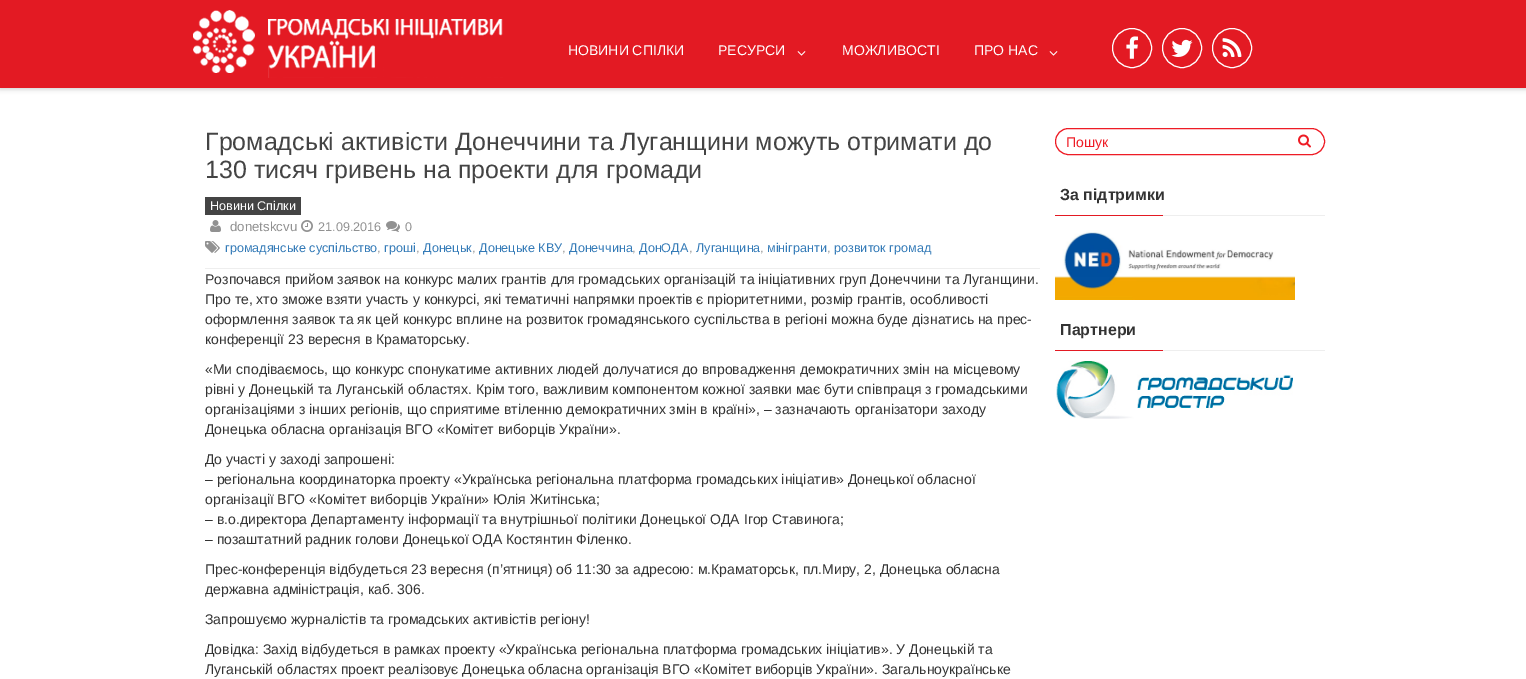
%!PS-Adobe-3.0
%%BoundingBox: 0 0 1526 679
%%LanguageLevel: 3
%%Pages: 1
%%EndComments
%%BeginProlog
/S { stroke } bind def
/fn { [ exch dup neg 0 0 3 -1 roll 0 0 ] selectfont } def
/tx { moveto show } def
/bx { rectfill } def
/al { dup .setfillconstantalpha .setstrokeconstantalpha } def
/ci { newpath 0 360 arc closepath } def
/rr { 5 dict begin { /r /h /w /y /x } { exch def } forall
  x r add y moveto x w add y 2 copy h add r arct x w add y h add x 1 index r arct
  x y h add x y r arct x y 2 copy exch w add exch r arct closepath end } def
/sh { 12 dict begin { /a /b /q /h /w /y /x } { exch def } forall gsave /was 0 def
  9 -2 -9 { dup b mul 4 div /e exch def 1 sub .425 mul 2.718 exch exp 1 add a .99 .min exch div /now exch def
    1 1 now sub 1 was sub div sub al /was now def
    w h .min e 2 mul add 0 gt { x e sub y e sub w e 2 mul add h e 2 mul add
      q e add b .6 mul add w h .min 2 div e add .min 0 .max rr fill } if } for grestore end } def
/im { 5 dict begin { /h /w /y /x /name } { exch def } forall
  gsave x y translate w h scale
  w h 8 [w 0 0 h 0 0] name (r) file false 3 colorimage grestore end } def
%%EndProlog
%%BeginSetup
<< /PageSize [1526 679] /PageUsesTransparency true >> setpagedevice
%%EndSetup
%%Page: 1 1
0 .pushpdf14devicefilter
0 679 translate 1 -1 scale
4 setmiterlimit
1 setgray
0 0 1526 679 bx
0 setgray
0 1 1526 88 0 2.5 0.2 sh
0.89 0.102 0.137 setrgbcolor
0 0 1526 88 bx
(image0.raw) 193 10 310 68 im
/LiberationSans-Regular 14 fn
1 setgray
(НОВИНИ СПІЛКИ) 568 55 tx
(РЕСУРСИ) 718 55 tx
(image1.raw) 797 51 9 5 im
(МОЖЛИВОСТІ) 842 55 tx
(ПРО НАС) 974 55 tx
(image1.raw) 1049 51 9 5 im
1132 48 19.5 ci S
(image2.raw) 1126 36 12 23 im
1182 48 19.5 ci S
(image3.raw) 1171 39 22 18 im
1232 48 19.5 ci S
(image4.raw) 1222 38 20 19 im
0.933 setgray
205 268 835 1 bx
/LiberationSans-Regular 25 fn
0.267 setgray
(Громадські активісти Донеччини та Луганщини можуть отримати до) 205 150 tx
(130 тисяч гривень на проекти для громади) 205 178 tx
205 197 96 18 bx
/LiberationSans-Regular 12.6 fn
1 setgray
(Новини Спілки) 210 210 tx
(image5.raw) 210 220 11 12 im
/LiberationSans-Regular 13.25 fn
0.569 setgray
(donetskcvu) 230 231 tx
(image6.raw) 301 220 12 12 im
/LiberationSans-Regular 12.6 fn
(21.09.2016) 318 231 tx
(image7.raw) 386 221 14 11 im
(0) 405 231 tx
(image8.raw) 205 241 15 12 im
0.2 0.478 0.718 setrgbcolor
(громадянське суспільство) 225 252 tx
0.569 setgray
(,) 377 252 tx
0.2 0.478 0.718 setrgbcolor
(гроші) 384 252 tx
0.569 setgray
(,) 416 252 tx
0.2 0.478 0.718 setrgbcolor
(Донецьк) 423 252 tx
0.569 setgray
(,) 472 252 tx
0.2 0.478 0.718 setrgbcolor
(Донецьке КВУ) 479 252 tx
0.569 setgray
(,) 562 252 tx
0.2 0.478 0.718 setrgbcolor
(Донеччина) 569 252 tx
0.569 setgray
(,) 632 252 tx
0.2 0.478 0.718 setrgbcolor
(ДонОДА) 639 252 tx
0.569 setgray
(,) 689 252 tx
0.2 0.478 0.718 setrgbcolor
(Луганщина) 696 252 tx
0.569 setgray
(,) 760 252 tx
0.2 0.478 0.718 setrgbcolor
(мінігранти) 767 252 tx
0.569 setgray
(,) 827 252 tx
0.2 0.478 0.718 setrgbcolor
(розвиток громад) 834 252 tx
/LiberationSans-Regular 14 fn
0.2 setgray
(Розпочався прийом заявок на конкурс малих грантів для громадських організацій та ініціативних груп Донеччини та Луганщини.) 205 284 tx
(Про те, хто зможе взяти участь у конкурсі, які тематичні напрямки проектів є пріоритетними, розмір грантів, особливості) 205 304 tx
(оформлення заявок та як цей конкурс вплине на розвиток громадянського суспільства в регіоні можна буде дізнатись на прес-) 205 324 tx
(конференції 23 вересня в Краматорську.) 205 344 tx
(«Ми сподіваємось, що конкурс спонукатиме активних людей долучатися до впровадження демократичних змін на місцевому) 205 374 tx
(рівні у Донецькій та Луганській областях. Крім того, важливим компонентом кожної заявки має бути співпраця з громадськими) 205 394 tx
(організаціями з інших регіонів, що сприятиме втіленню демократичних змін в країні», – зазначають організатори заходу) 205 414 tx
(Донецька обласна організація ВГО «Комітет виборців України».) 205 434 tx
(До участі у заході запрошені:) 205 464 tx
(– регіональна координаторка проекту «Українська регіональна платформа громадських ініціатив» Донецької обласної) 205 484 tx
(організації ВГО «Комітет виборців України» Юлія Житінська;) 205 504 tx
(– в.о.директора Департаменту інформації та внутрішньої політики Донецької ОДА Ігор Ставинога;) 205 524 tx
(– позаштатний радник голови Донецької ОДА Костянтин Філенко.) 205 544 tx
(Прес-конференція відбудеться 23 вересня \(п’ятниця\) об 11:30 за адресою: м.Краматорськ, пл.Миру, 2, Донецька обласна) 205 574 tx
(державна адміністрація, каб. 306.) 205 594 tx
(Запрошуємо журналістів та громадських активістів регіону!) 205 624 tx
(Довідка: Захід відбудеться в рамках проекту «Українська регіональна платформа громадських ініціатив». У Донецькій та) 205 654 tx
(Луганській областях проект реалізовує Донецька обласна організація ВГО «Комітет виборців України». Загальноукраїнське) 205 674 tx
0.933 0.11 0.145 setrgbcolor
1055.5 128.5 269 26 13 rr S
(Пошук) 1066 147 tx
(image9.raw) 1298 134 13 14 im
0.933 setgray
1163 215 162 1 bx
/LiberationSans-Bold 16 fn
0.2 setgray
(За підтримки) 1060 200 tx
0.89 0.102 0.137 setrgbcolor
1055 215 108 1 bx
(image10.raw) 1055 230 240 70 im
0.933 setgray
1163 350 162 1 bx
0.2 setgray
(Партнери) 1060 335 tx
0.89 0.102 0.137 setrgbcolor
1055 350 108 1 bx
(image11.raw) 1056 361 237 58 im
.poppdf14devicefilter showpage
%%EOF
